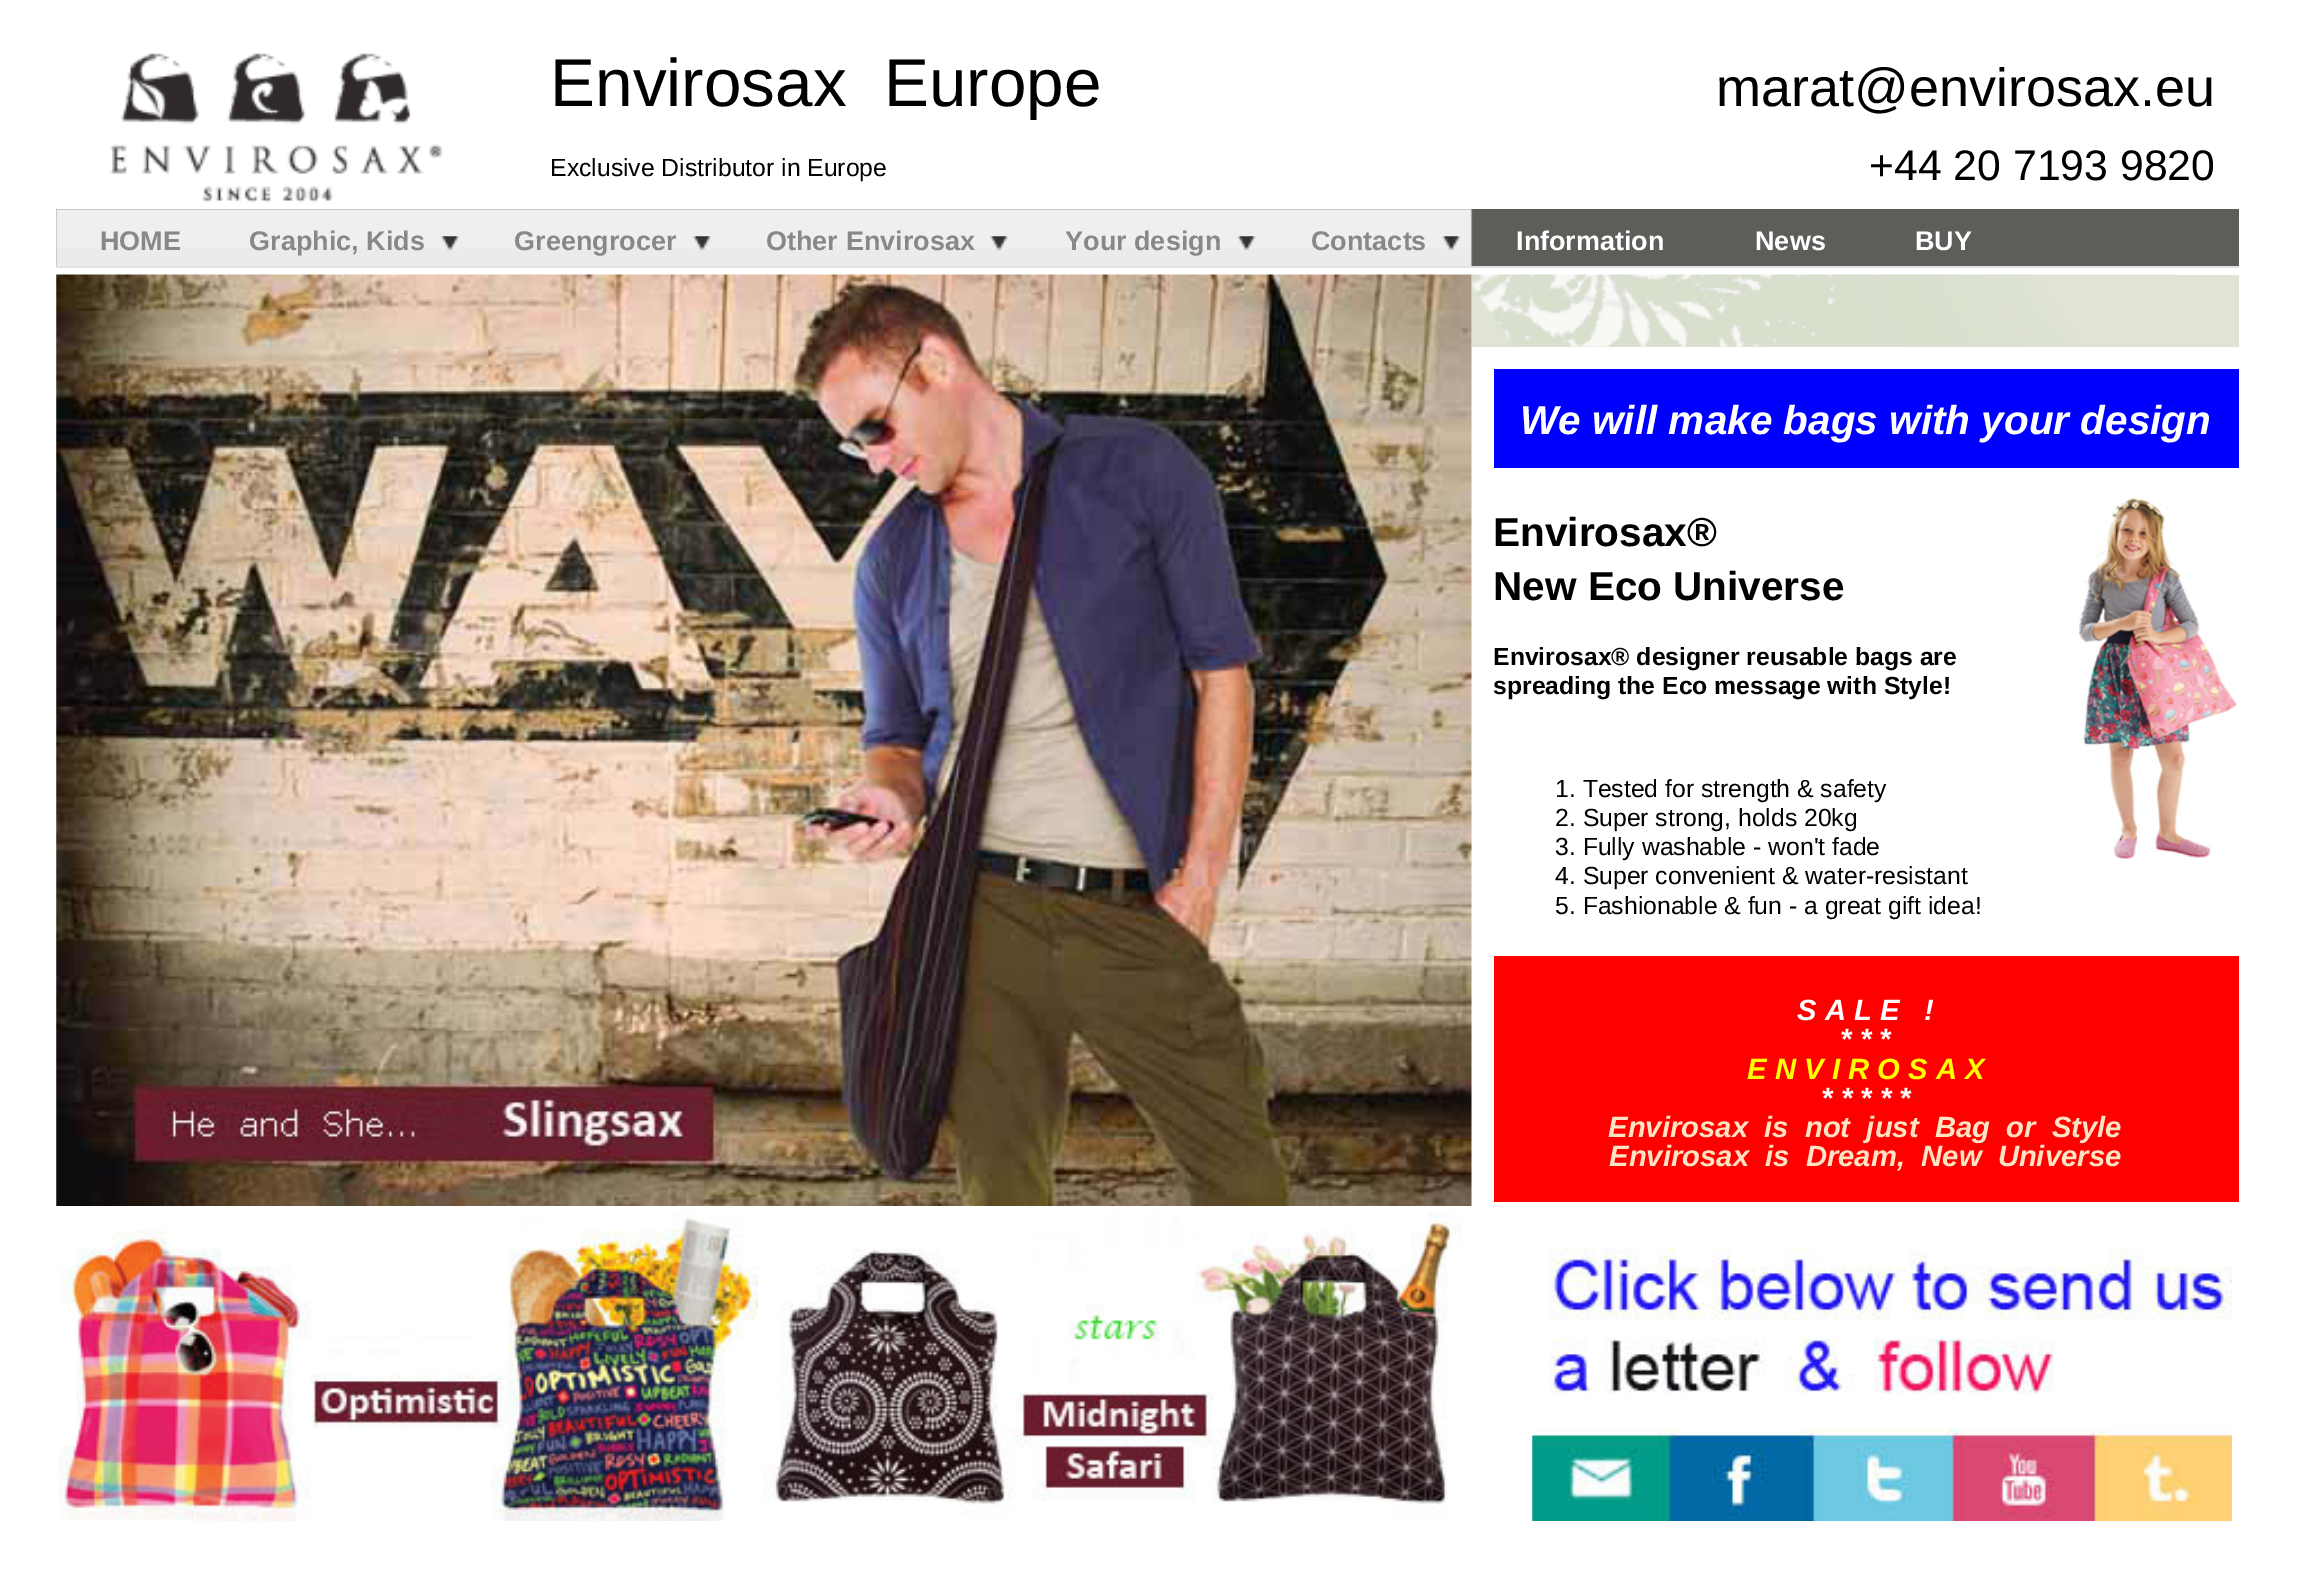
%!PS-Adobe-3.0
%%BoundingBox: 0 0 2314 1585
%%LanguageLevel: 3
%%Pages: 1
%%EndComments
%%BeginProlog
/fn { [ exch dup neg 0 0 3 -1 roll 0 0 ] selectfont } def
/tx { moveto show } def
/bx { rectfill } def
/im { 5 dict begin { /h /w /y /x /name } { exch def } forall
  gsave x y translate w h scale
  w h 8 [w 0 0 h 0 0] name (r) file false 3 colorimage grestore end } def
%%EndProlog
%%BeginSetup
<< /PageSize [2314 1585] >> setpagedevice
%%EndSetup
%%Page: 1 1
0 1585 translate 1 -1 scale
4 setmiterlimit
1 setgray
0 0 2314 1585 bx
(image0.raw) 109 53 335 150 im
/LiberationSans-Regular 67.5 fn
0 setgray
(Envirosax  Europe) 550 106 tx
/LiberationSans-Regular 24.75 fn
(Exclusive Distributor in Europe) 550 176 tx
/LiberationSans-Regular 54 fn
(marat@envirosax.eu) 1716 106 tx
/LiberationSans-Regular 42.75 fn
(+44 20 7193 9820) 1869 180 tx
0.361 0.369 0.353 setrgbcolor
56 209 2183 57 bx
(image1.raw) 56 209 1417 57 im
0.886 0.886 0.882 setrgbcolor
56 266 2183 2 bx
/LiberationSans-Bold 27 fn
0.533 setgray
(HOME) 100 250 tx
(image2.raw) 441 236 18 14 im
(Graphic, Kids) 249 250 tx
(image2.raw) 693 236 18 14 im
(Greengrocer) 514 250 tx
(image2.raw) 990 236 18 14 im
(Other Envirosax) 766 250 tx
(image3.raw) 1237 236 19 14 im
(Your design) 1065 250 tx
(image4.raw) 1442 236 19 14 im
(Contacts) 1311 250 tx
1 setgray
(Information) 1516 250 tx
(News) 1755 250 tx
(BUY) 1915 250 tx
0.875 0.894 0.835 setrgbcolor
1472 275 767 72 bx
(image6.raw) 1471 274 705 73 im
(image5.raw) 56 274 1416 932 im
0 0 1 setrgbcolor
1494 369 745 99 bx
/LiberationSans-BoldItalic 40.5 fn
1 setgray
(We will make bags with your design) 1520 434 tx
/LiberationSans-Bold 40.5 fn
0 setgray
(Envirosax®) 1493 546 tx
(New Eco Universe) 1493 600 tx
/LiberationSans-Bold 24.75 fn
(Envirosax® designer reusable bags are) 1493 665 tx
(spreading the Eco message with Style!) 1493 694 tx
(image7.raw) 2078 498 160 361 im
/LiberationSans-Regular 24.75 fn
(1. Tested for strength & safety) 1555 797 tx
(2. Super strong, holds 20kg) 1555 826 tx
(3. Fully washable - won't fade) 1555 855 tx
(4. Super convenient & water-resistant) 1555 884 tx
(5. Fashionable & fun - a great gift idea!) 1555 914 tx
1 0 0 setrgbcolor
1494 956 745 246 bx
/LiberationSans-BoldItalic 29.25 fn
1 setgray
(S A L E   !) 1797 1020 tx
(* * *) 1840 1049 tx
1 1 0 setrgbcolor
(E N V I R O S A X) 1747 1079 tx
1 setgray
(* * * * *) 1821 1108 tx
1 0.894 0.769 setrgbcolor
(Envirosax  is  not  just  Bag  or  Style) 1608 1137 tx
(Envirosax  is  Dream,  New  Universe) 1609 1166 tx
(image8.raw) 58 1213 701 308 im
(image9.raw) 763 1213 700 305 im
(image10.raw) 1532 1248 700 273 im
showpage
%%EOF
